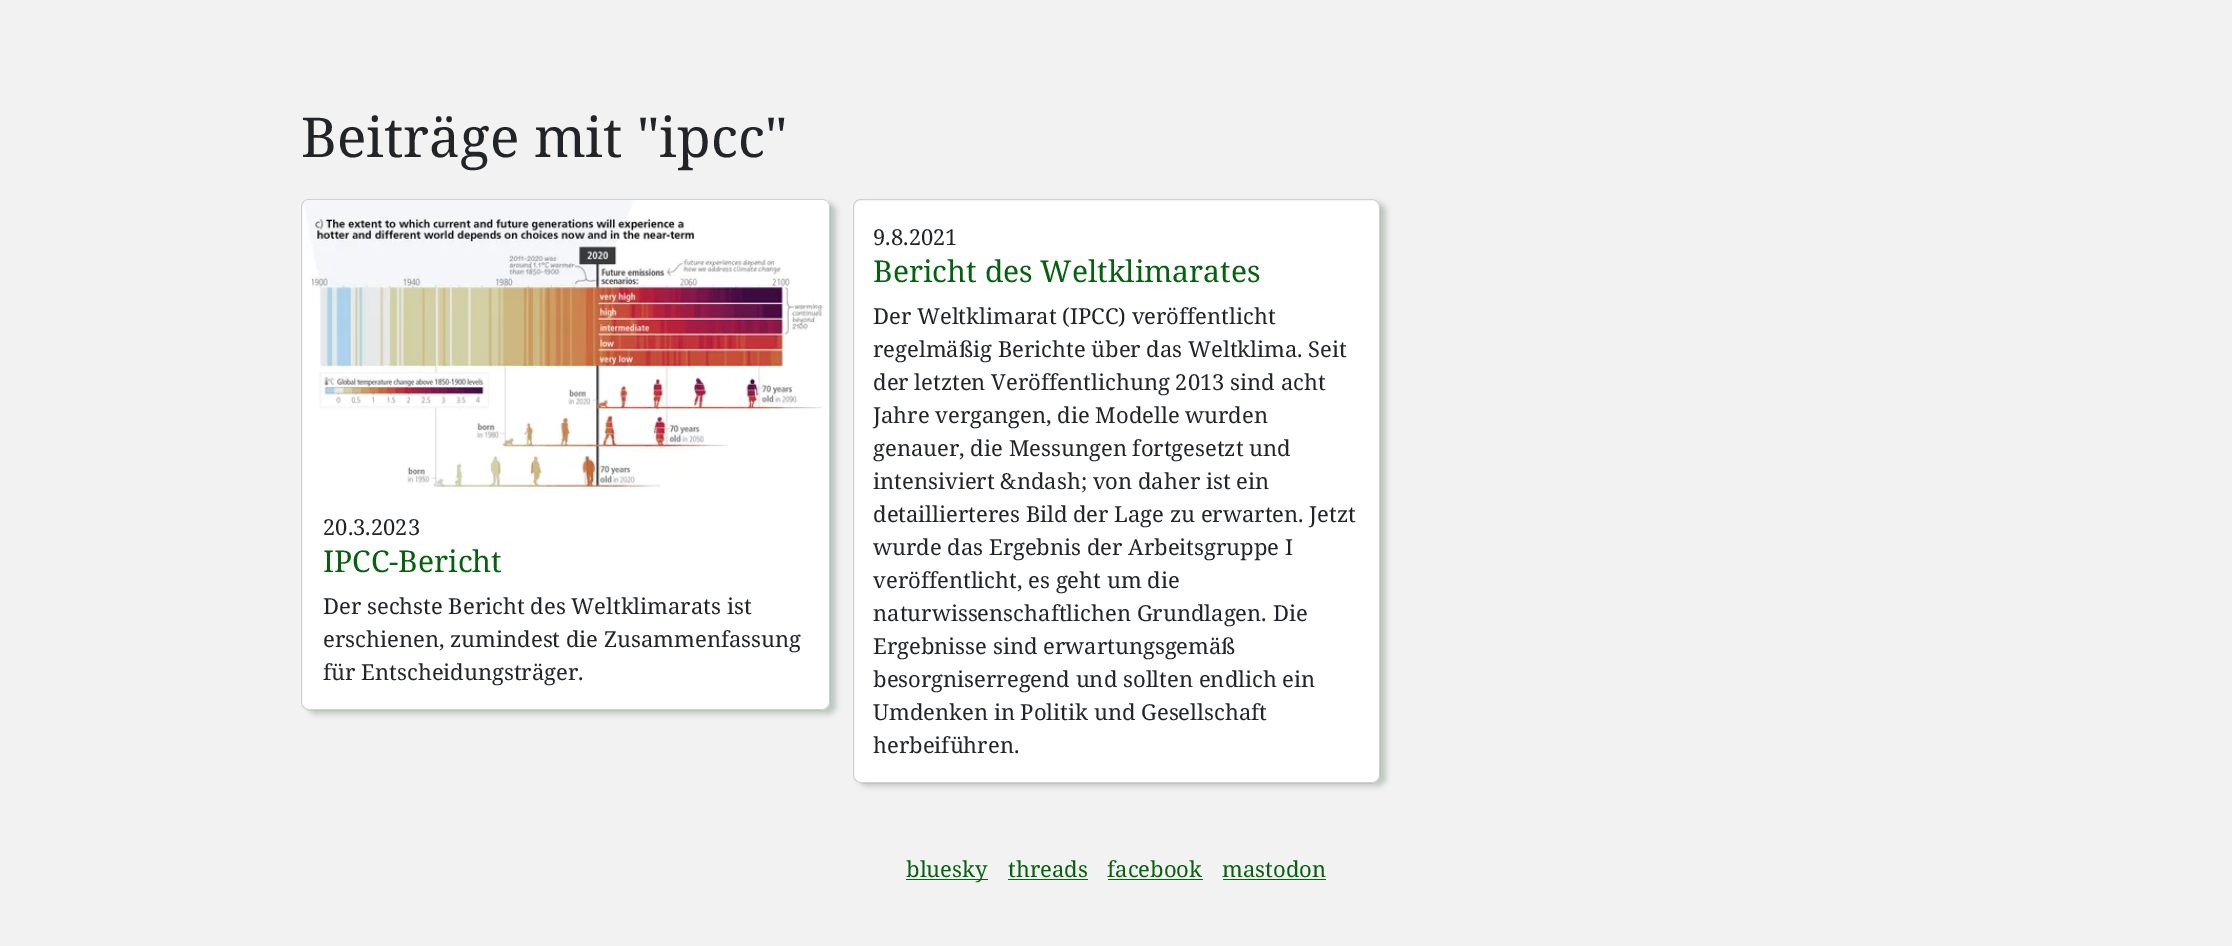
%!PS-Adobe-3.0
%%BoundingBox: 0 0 2232 946
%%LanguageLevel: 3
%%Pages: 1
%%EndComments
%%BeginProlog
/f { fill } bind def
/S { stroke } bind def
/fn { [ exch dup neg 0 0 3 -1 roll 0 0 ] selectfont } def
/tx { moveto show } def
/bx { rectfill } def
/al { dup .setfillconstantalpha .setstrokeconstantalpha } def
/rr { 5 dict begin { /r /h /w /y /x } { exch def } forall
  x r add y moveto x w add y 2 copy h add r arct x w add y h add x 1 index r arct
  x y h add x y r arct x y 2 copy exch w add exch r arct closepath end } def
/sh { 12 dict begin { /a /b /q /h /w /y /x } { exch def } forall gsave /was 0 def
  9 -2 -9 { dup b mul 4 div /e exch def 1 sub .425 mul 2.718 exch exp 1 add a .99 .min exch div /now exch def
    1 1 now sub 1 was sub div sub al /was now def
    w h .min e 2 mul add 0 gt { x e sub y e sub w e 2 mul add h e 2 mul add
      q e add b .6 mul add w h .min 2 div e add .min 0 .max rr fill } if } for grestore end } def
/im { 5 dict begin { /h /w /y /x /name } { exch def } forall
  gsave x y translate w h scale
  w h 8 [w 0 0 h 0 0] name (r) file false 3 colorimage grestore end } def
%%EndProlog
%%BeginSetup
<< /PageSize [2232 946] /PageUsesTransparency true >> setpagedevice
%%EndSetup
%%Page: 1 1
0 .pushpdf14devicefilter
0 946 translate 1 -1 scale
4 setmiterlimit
0.949 setgray
0 0 2232 946 bx
/NotoSerif-Regular 55 fn
0.129 0.145 0.161 setrgbcolor
(Beiträge mit "ipcc") 301 157 tx
0.122 0.278 0.133 setrgbcolor
308 203 528 511 8 3 0.25 sh
1 setgray
301 199 529 511 8 rr f
0.18 al
0 setgray
301.5 199.5 528 510 7.5 rr S
1 al
(image0.raw) 304 200 525 290 im
/NotoSerif-Regular 22 fn
0.129 0.145 0.161 setrgbcolor
(20.3.2023) 323 535 tx
/NotoSerif-Regular 30 fn
0.02 0.38 0.051 setrgbcolor
(IPCC-Bericht) 323 572 tx
/NotoSerif-Regular 22 fn
0.129 0.145 0.161 setrgbcolor
(Der sechste Bericht des Weltklimarats ist) 323 614 tx
(erschienen, zumindest die Zusammenfassung) 323 647 tx
(für Entscheidungsträger.) 323 680 tx
0.122 0.278 0.133 setrgbcolor
859 203 527 583 8 3 0.25 sh
1 setgray
853 199 527 584 8 rr f
0.18 al
0 setgray
853.5 199.5 526 583 7.5 rr S
1 al
0.129 0.145 0.161 setrgbcolor
(9.8.2021) 873 245 tx
/NotoSerif-Regular 30 fn
0.02 0.38 0.051 setrgbcolor
(Bericht des Weltklimarates) 873 282 tx
/NotoSerif-Regular 22 fn
0.129 0.145 0.161 setrgbcolor
(Der Weltklimarat \(IPCC\) veröffentlicht) 873 324 tx
(regelmäßig Berichte über das Weltklima. Seit) 873 357 tx
(der letzten Veröffentlichung 2013 sind acht) 873 390 tx
(Jahre vergangen, die Modelle wurden) 873 423 tx
(genauer, die Messungen fortgesetzt und) 873 456 tx
(intensiviert &ndash; von daher ist ein) 873 489 tx
(detaillierteres Bild der Lage zu erwarten. Jetzt) 873 522 tx
(wurde das Ergebnis der Arbeitsgruppe I) 873 555 tx
(veröffentlicht, es geht um die) 873 588 tx
(naturwissenschaftlichen Grundlagen. Die) 873 621 tx
(Ergebnisse sind erwartungsgemäß) 873 654 tx
(besorgniserregend und sollten endlich ein) 873 687 tx
(Umdenken in Politik und Gesellschaft) 873 720 tx
(herbeiführen.) 873 753 tx
0.02 0.38 0.051 setrgbcolor
906 879 82 1 bx
(bluesky) 906 877 tx
(threads) 1008 877 tx
1008 879 80 1 bx
(facebook) 1107 877 tx
1108 879 95 1 bx
(mastodon) 1222 877 tx
1223 879 103 1 bx
.poppdf14devicefilter showpage
%%EOF
